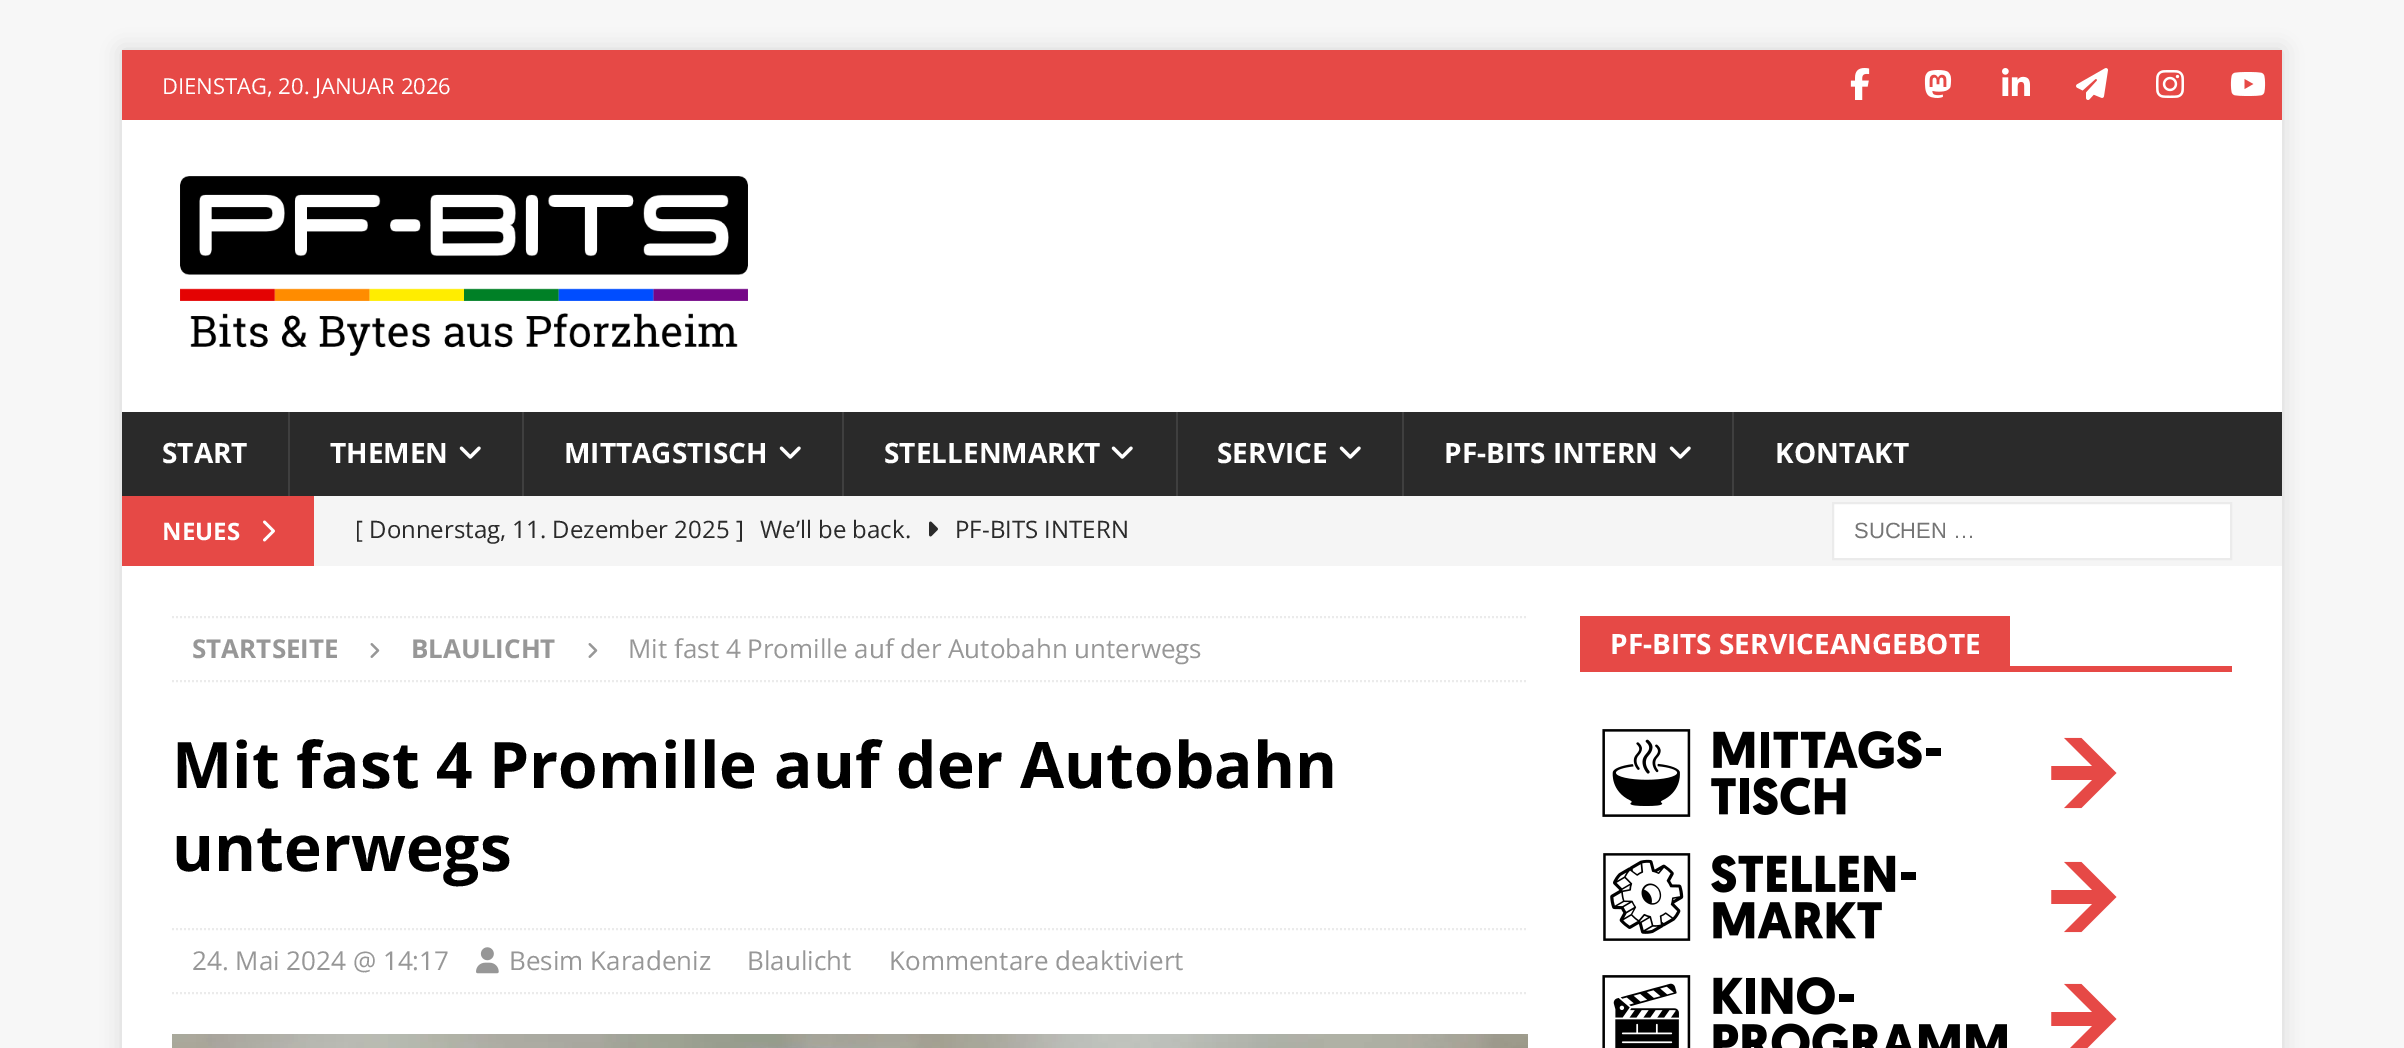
%!PS-Adobe-3.0
%%BoundingBox: 0 0 2404 1048
%%LanguageLevel: 3
%%Pages: 1
%%EndComments
%%BeginProlog
/m { moveto } bind def
/l { lineto } bind def
/h { closepath } bind def
/f { fill } bind def
/S { stroke } bind def
/q { gsave } bind def
/Q { grestore } bind def
/w { setlinewidth } bind def
/fn { [ exch dup neg 0 0 3 -1 roll 0 0 ] selectfont } def
/tx { moveto show } def
/bx { rectfill } def
/al { dup .setfillconstantalpha .setstrokeconstantalpha } def
/rr { 5 dict begin { /r /h /w /y /x } { exch def } forall
  x r add y moveto x w add y 2 copy h add r arct x w add y h add x 1 index r arct
  x y h add x y r arct x y 2 copy exch w add exch r arct closepath end } def
/sh { 12 dict begin { /a /b /q /h /w /y /x } { exch def } forall gsave /was 0 def
  9 -2 -9 { dup b mul 4 div /e exch def 1 sub .425 mul 2.718 exch exp 1 add a .99 .min exch div /now exch def
    1 1 now sub 1 was sub div sub al /was now def
    w h .min e 2 mul add 0 gt { x e sub y e sub w e 2 mul add h e 2 mul add
      q e add b .6 mul add w h .min 2 div e add .min 0 .max rr fill } if } for grestore end } def
/im { 5 dict begin { /h /w /y /x /name } { exch def } forall
  gsave x y translate w h scale
  w h 8 [w 0 0 h 0 0] name (r) file false 3 colorimage grestore end } def
%%EndProlog
%%BeginSetup
<< /PageSize [2404 1048] /PageUsesTransparency true >> setpagedevice
%%EndSetup
%%Page: 1 1
0 .pushpdf14devicefilter
0 1048 translate 1 -1 scale
4 setmiterlimit
0.969 setgray
0 0 2404 1048 bx
0.196 setgray
122 50 2160 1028 0 10 0.17 sh
0.902 0.286 0.275 setrgbcolor
122 50 2160 70 bx
/OpenSans-Regular 22 fn
1 setgray
(DIENSTAG, 20. JANUAR 2026) 162 94 tx
(image0.raw) 1850 68 20 32 im
(image1.raw) 1924 70 28 28 im
(image2.raw) 2002 68 28 28 im
(image3.raw) 2076 68 32 32 im
(image4.raw) 2156 70 28 28 im
(image5.raw) 2230 72 36 24 im
122 120 2160 292 bx
(image6.raw) 180 176 568 180 im
0.165 setgray
122 412 2160 84 bx
/OpenSans-Bold 28 fn
1 setgray
(START) 162 463 tx
0.247 setgray
288 412 2 84 bx
1 setgray
(THEMEN) 330 463 tx
(image7.raw) 459 446 22 13 im
0.247 setgray
522 412 2 84 bx
1 setgray
(MITTAGSTISCH) 564 463 tx
(image7.raw) 779 446 22 13 im
0.247 setgray
842 412 2 84 bx
1 setgray
(STELLENMARKT) 884 463 tx
(image7.raw) 1111 446 22 13 im
0.247 setgray
1176 412 2 84 bx
1 setgray
(SERVICE) 1217 463 tx
(image7.raw) 1339 446 22 13 im
0.247 setgray
1402 412 2 84 bx
1 setgray
(PF-BITS INTERN) 1444 463 tx
(image7.raw) 1669 446 22 13 im
0.247 setgray
1732 412 2 84 bx
1 setgray
(KONTAKT) 1775 463 tx
0.961 setgray
314 496 1968 70 bx
0.902 0.286 0.275 setrgbcolor
122 496 192 70 bx
/OpenSans-Bold 24 fn
1 setgray
(NEUES) 162 540 tx
(image8.raw) 263 520 12 22 im
/OpenSans-Regular 24 fn
0.165 setgray
([ Donnerstag, 11. Dezember 2025 ]) 355 538 tx
(We’ll be back.) 760 538 tx
(image9.raw) 929 521 9 16 im
(PF-BITS INTERN) 955 538 tx
1 setgray
1833 503 m 2231 503 l 2231 559 l 1833 559 l h q f Q
0.922 setgray
2 w
S
/LiberationSans-Regular 22 fn
0.459 setgray
(SUCHEN …) 1854 538 tx
1 setgray
122 566 2160 482 bx
0.922 setgray
[2 2] 0 setdash
172 617 m 1528 617 l S
172 681 m 1528 681 l S
/OpenSans-Bold 26 fn
0.592 setgray
(STARTSEITE) 192 658 tx
(image10.raw) 370 643 10 15 im
(BLAULICHT) 411 658 tx
(image10.raw) 588 643 10 15 im
/OpenSans-Regular 26 fn
(Mit fast 4 Promille auf der Autobahn unterwegs) 628 658 tx
/OpenSans-Bold 64 fn
0 setgray
(Mit fast 4 Promille auf der Autobahn) 172 788 tx
(unterwegs) 172 871 tx
0.922 setgray
172 929 m 1528 929 l S
172 993 m 1528 993 l S
/OpenSans-Regular 26 fn
0.592 setgray
(24. Mai 2024 @ 14:17) 192 970 tx
(image11.raw) 476 947 23 27 im
(Besim Karadeniz) 509 970 tx
(Blaulicht) 747 970 tx
(Kommentare deaktiviert) 889 970 tx
(image12.raw) 172 1034 1356 14 im
0.902 0.286 0.275 setrgbcolor
1580 666 652 6 bx
1580 616 430 50 bx
/OpenSans-Bold 28 fn
1 setgray
(PF-BITS SERVICEANGEBOTE) 1610 654 tx
(image13.raw) 1602 729 515 88 im
(image14.raw) 1603 853 514 88 im
(image15.raw) 1602 975 515 73 im
.poppdf14devicefilter showpage
%%EOF
